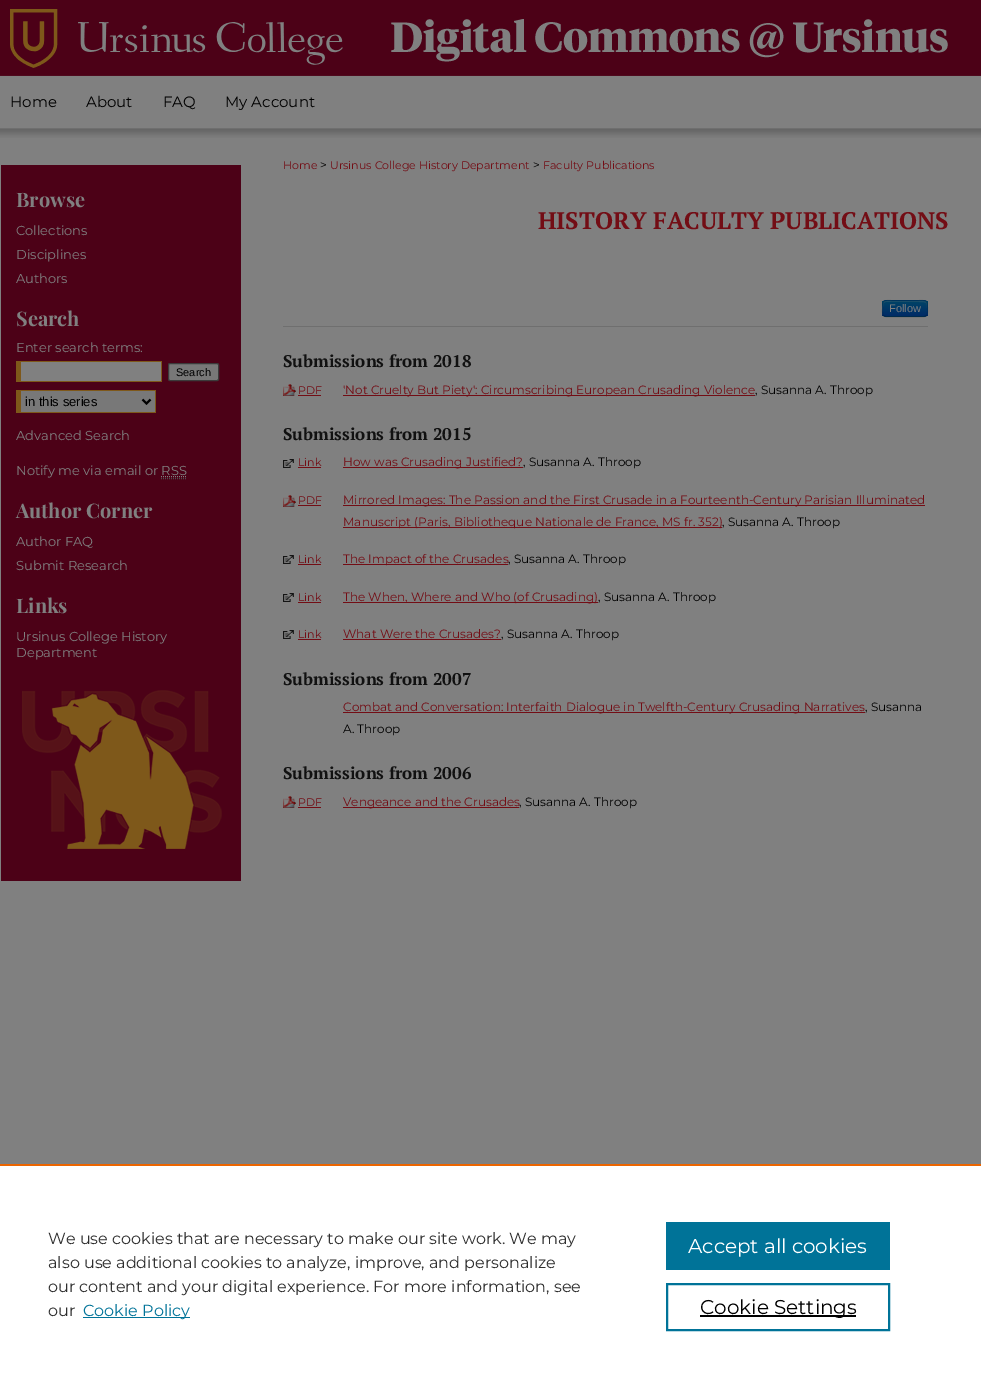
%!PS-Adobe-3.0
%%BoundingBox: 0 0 981 1384
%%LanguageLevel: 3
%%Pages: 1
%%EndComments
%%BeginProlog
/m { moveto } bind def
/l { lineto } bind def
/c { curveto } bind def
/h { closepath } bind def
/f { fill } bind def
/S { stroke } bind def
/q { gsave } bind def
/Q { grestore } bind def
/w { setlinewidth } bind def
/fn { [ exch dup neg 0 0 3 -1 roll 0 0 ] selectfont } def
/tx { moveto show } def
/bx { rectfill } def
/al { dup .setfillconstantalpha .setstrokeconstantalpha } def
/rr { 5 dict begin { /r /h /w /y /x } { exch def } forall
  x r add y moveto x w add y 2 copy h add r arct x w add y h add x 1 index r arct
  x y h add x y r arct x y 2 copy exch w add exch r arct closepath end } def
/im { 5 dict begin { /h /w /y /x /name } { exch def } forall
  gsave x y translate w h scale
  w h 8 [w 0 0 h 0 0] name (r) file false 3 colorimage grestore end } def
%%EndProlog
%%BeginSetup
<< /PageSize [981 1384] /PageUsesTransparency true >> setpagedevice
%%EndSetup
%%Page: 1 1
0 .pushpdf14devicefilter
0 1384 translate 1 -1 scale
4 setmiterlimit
0.502 setgray
0 0 981 1384 bx
(image0.raw) 0 0 981 138 im
(image1.raw) 1 9 980 67 im
/Montserrat-Regular 15 fn
0 setgray
(Home) 10 107 tx
(About) 86 107 tx
(FAQ) 163 107 tx
(My Account) 225 107 tx
0.298 0.004 0.09 setrgbcolor
1 165 240 716 bx
/PlayfairDisplay-Bold 20 fn
0.502 setgray
(Browse) 16 207 tx
/Montserrat-Regular 13 fn
(Collections) 16 235 tx
(Disciplines) 16 259 tx
(Authors) 16 283 tx
/PlayfairDisplay-Bold 20 fn
(Search) 16 326 tx
/Montserrat-Regular 13 fn
(Enter search terms:) 16 352 tx
21 362 140 19 bx
0.494 0.345 0.102 setrgbcolor
16 361 146 1 bx
161 361 1 21 bx
16 381 146 1 bx
16 361 5 21 bx
0.471 setgray
168.5 363.5 50 17 1.5 rr q f Q
0.231 setgray
S
/LiberationSans-Regular 11 fn
0 setgray
(Search) 176 376 tx
0.471 setgray
21 391 134 21 bx
0.494 0.345 0.102 setrgbcolor
16 390 140 1 bx
155 390 1 23 bx
16 412 140 1 bx
16 390 5 23 bx
0 setgray
2 w
142.5 399.5 m 146.5 403.5 l 150.5 399.5 l S
/LiberationSans-Regular 13 fn
(in this series) 25 406 tx
/Montserrat-Regular 13 fn
0.502 setgray
(Advanced Search) 16 440 tx
(Notify me via email or RSS) 16 475 tx
1 w
[1 1] 0 setdash
161 476.5 m 186.5 476.5 l S
0.302 setgray
161 478.5 m 186 478.5 l S
/PlayfairDisplay-Bold 20 fn
0.502 setgray
(Author Corner) 16 518 tx
/Montserrat-Regular 13 fn
(Author FAQ) 16 546 tx
(Submit Research) 16 570 tx
/PlayfairDisplay-Bold 20 fn
(Links) 16 613 tx
/Montserrat-Regular 13 fn
(Ursinus College History) 16 641 tx
(Department) 16 657 tx
(image2.raw) 22 690 200 159 im
/Montserrat-Regular 11 fn
0.451 0.051 0.082 setrgbcolor
(Home) 283 169 tx
/Montserrat-Regular 12 fn
0 setgray
(>) 320 169 tx
/Montserrat-Regular 11 fn
0.451 0.051 0.082 setrgbcolor
(Ursinus College History Department) 330 169 tx
/Montserrat-Regular 12 fn
0 setgray
(>) 533 169 tx
/Montserrat-Regular 11 fn
0.451 0.051 0.082 setrgbcolor
(Faculty Publications) 543 169 tx
/PTSerif-Bold 24 fn
(HISTORY FACULTY PUBLICATIONS) 538 229 tx
0.435 setgray
283 326 645 1 bx
0 0.227 0.4 setrgbcolor
882 300 46 17 4 rr f
q
882 300 46 17 4 rr clip newpath
q 882 301 m 928 301 l 928 316 l 882 316 l h clip newpath
<< /ShadingType 2 /ColorSpace /DeviceRGB /Coords [905 301 905 316] /Extend [true true] /Function << /FunctionType 2 /Domain [0 1] /C0 [0 0.267 0.4] /C1 [0 0.169 0.4] /N 1 >> >> shfill Q
Q
0.2 al
0.502 setgray
886 302 m 919 302 l 926 302 927 302 927 308 c 927 314 l 927 307 l 927 300 925 301 918 301 c 892 301 l 885 301 883 300 883 307 c 883 315 l 883 312 881 302 886 302 c h f
0.25 al
0 setgray
[] 0 setdash
926.5 315.5 m 926 316 925 316.5 924 316.5 c 886 316.5 l 885 316.5 884 316 883.5 315.5 c S
0.1 al
883.5 315.5 m 882 313.5 882.5 310.5 882.5 308.5 c 882.5 299.5 883 300.5 892.5 300.5 c 917.5 300.5 l 927 300.5 927.5 299.5 927.5 308.5 c 927.5 310.5 928 313.5 926.5 315.5 c S
/LiberationSans-Regular 11 fn
1 al
0.502 setgray
(Follow) 889 312 tx
/PTSerif-Bold 17 fn
0.067 setgray
(Submissions from 2018) 283 367 tx
(image3.raw) 283 384 13 12 im
/Montserrat-Regular 11 fn
0.451 0.051 0.082 setrgbcolor
(PDF) 298 394 tx
298 395 23 1 bx
343 395 412 1 bx
/Montserrat-Regular 12 fn
('Not Cruelty But Piety': Circumscribing European Crusading Violence) 343 394 tx
0 setgray
(, Susanna A. Throop) 755 394 tx
/PTSerif-Bold 17 fn
0.067 setgray
(Submissions from 2015) 283 440 tx
(image4.raw) 283 459 11 9 im
/Montserrat-Regular 11 fn
0.451 0.051 0.082 setrgbcolor
(Link) 298 466 tx
298 467 23 1 bx
343 467 180 1 bx
/Montserrat-Regular 12 fn
(How was Crusading Justified?) 343 466 tx
0 setgray
(, Susanna A. Throop) 523 466 tx
(image3.raw) 283 495 13 12 im
/Montserrat-Regular 11 fn
0.451 0.051 0.082 setrgbcolor
(PDF) 298 504 tx
298 505 23 1 bx
343 505 582 1 bx
/Montserrat-Regular 12 fn
(Mirrored Images: The Passion and the First Crusade in a Fourteenth-Century Parisian Illuminated) 343 504 tx
343 527 379 1 bx
(Manuscript \(Paris, Bibliotheque Nationale de France, MS fr. 352\)) 343 526 tx
0 setgray
(, Susanna A. Throop) 722 526 tx
(image4.raw) 283 555 11 9 im
/Montserrat-Regular 11 fn
0.451 0.051 0.082 setrgbcolor
(Link) 298 563 tx
298 564 23 1 bx
343 564 165 1 bx
/Montserrat-Regular 12 fn
(The Impact of the Crusades) 343 563 tx
0 setgray
(, Susanna A. Throop) 508 563 tx
(image4.raw) 283 593 11 9 im
/Montserrat-Regular 11 fn
0.451 0.051 0.082 setrgbcolor
(Link) 298 601 tx
298 602 23 1 bx
343 602 255 1 bx
/Montserrat-Regular 12 fn
(The When, Where and Who \(of Crusading\)) 343 601 tx
0 setgray
(, Susanna A. Throop) 598 601 tx
(image4.raw) 283 630 11 9 im
/Montserrat-Regular 11 fn
0.451 0.051 0.082 setrgbcolor
(Link) 298 638 tx
298 639 23 1 bx
/Montserrat-Regular 12 fn
(What Were the Crusades?) 343 638 tx
343 639 158 1 bx
0 setgray
(, Susanna A. Throop) 501 638 tx
/PTSerif-Bold 17 fn
0.067 setgray
(Submissions from 2007) 283 685 tx
0.451 0.051 0.082 setrgbcolor
343 712 522 1 bx
/Montserrat-Regular 12 fn
(Combat and Conversation: Interfaith Dialogue in Twelfth-Century Crusading Narratives) 343 711 tx
0 setgray
(, Susanna) 865 711 tx
(A. Throop) 343 733 tx
/PTSerif-Bold 17 fn
0.067 setgray
(Submissions from 2006) 283 779 tx
(image3.raw) 283 796 13 12 im
/Montserrat-Regular 11 fn
0.451 0.051 0.082 setrgbcolor
(PDF) 298 806 tx
298 807 23 1 bx
343 807 176 1 bx
/Montserrat-Regular 12 fn
(Vengeance and the Crusades) 343 806 tx
0 setgray
(, Susanna A. Throop) 519 806 tx
1 setgray
0 1166 981 218 bx
0.922 0.396 0 setrgbcolor
0 1164 981 2 bx
/Montserrat-Regular 16 fn
0.18 setgray
(We use cookies that are necessary to make our site work. We may) 48 1244 tx
(also use additional cookies to analyze, improve, and personalize) 48 1268 tx
(our content and your digital experience. For more information, see) 48 1292 tx
(our) 48 1316 tx
0 0.451 0.596 setrgbcolor
83 1317 107 1 bx
(Cookie Policy) 83 1316 tx
666 1222 224 48 bx
/Montserrat-Regular 20 fn
1 setgray
(Accept all cookies) 688 1253 tx
0 0.451 0.596 setrgbcolor
2 w
667 1284 222 46 rectstroke
0 setgray
700 1315 156 2 bx
(Cookie Settings) 700 1314 tx
.poppdf14devicefilter showpage
%%EOF
